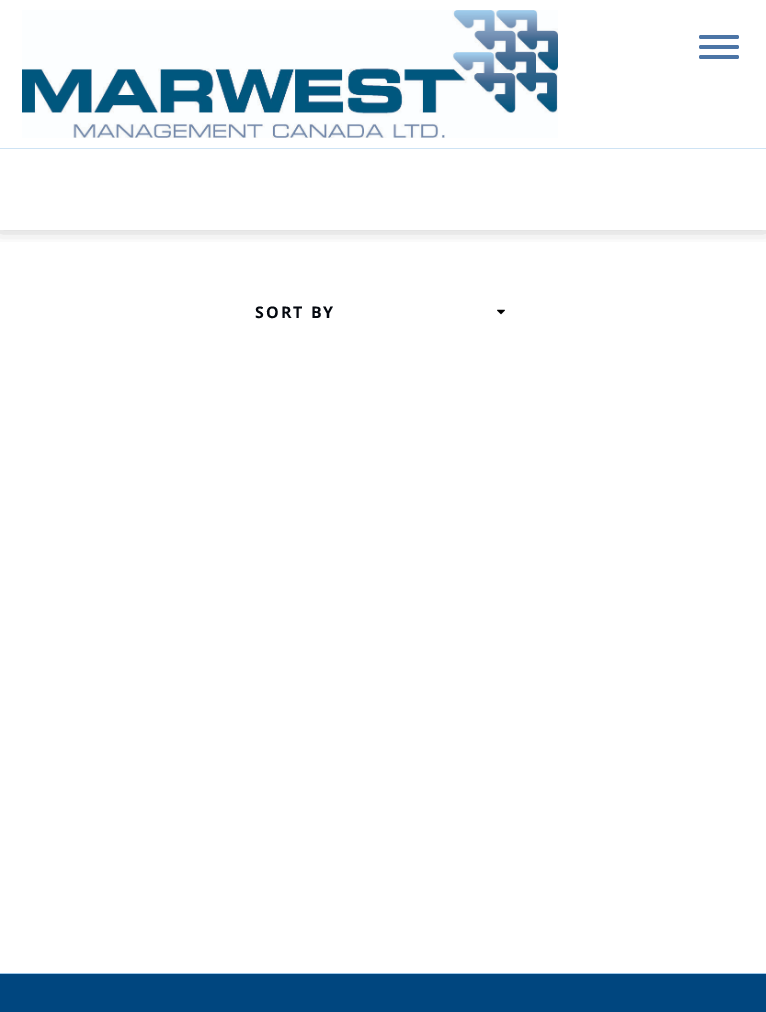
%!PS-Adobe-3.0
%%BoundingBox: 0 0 766 1012
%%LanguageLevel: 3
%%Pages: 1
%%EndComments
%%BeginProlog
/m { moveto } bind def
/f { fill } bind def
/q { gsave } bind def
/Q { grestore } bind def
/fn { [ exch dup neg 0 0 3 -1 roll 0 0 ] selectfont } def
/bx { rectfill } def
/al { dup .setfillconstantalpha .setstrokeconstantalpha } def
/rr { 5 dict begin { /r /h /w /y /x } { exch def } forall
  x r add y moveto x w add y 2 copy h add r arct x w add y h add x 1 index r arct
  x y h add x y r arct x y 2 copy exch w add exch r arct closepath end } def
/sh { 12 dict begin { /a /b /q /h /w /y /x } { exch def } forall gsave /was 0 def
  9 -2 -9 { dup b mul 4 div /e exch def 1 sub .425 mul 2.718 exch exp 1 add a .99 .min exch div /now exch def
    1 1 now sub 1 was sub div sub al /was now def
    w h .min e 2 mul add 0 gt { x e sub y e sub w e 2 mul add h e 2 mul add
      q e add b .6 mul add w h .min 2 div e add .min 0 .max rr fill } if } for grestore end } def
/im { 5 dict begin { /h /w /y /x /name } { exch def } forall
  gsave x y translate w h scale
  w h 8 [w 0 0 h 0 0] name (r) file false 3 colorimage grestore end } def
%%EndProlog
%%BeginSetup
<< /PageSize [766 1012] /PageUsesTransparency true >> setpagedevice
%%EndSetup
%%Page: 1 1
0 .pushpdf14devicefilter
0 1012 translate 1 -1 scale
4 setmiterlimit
1 setgray
0 0 766 1012 bx
(image0.raw) 22 10 536 128 im
0.298 0.459 0.651 setrgbcolor
699 45 40 4 2 rr f
699 35 40 4 2 rr f
699 55 40 4 2 rr f
q
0 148 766 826 rectclip
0 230 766 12 rectclip
0 setgray
0 146 766 82 0 9 0.3 sh
Q
0.808 0.89 0.957 setrgbcolor
0 148 766 1 bx
(image1.raw) 497 309 8 6 im
/OpenSans-Bold 16 fn
0.016 0.031 0.059 setrgbcolor
255 318 m 2 0 (SORT BY) ashow
0.616 0.78 0.914 setrgbcolor
0 973 766 1 bx
0 0.275 0.498 setrgbcolor
0 974 766 38 bx
.poppdf14devicefilter showpage
%%EOF
